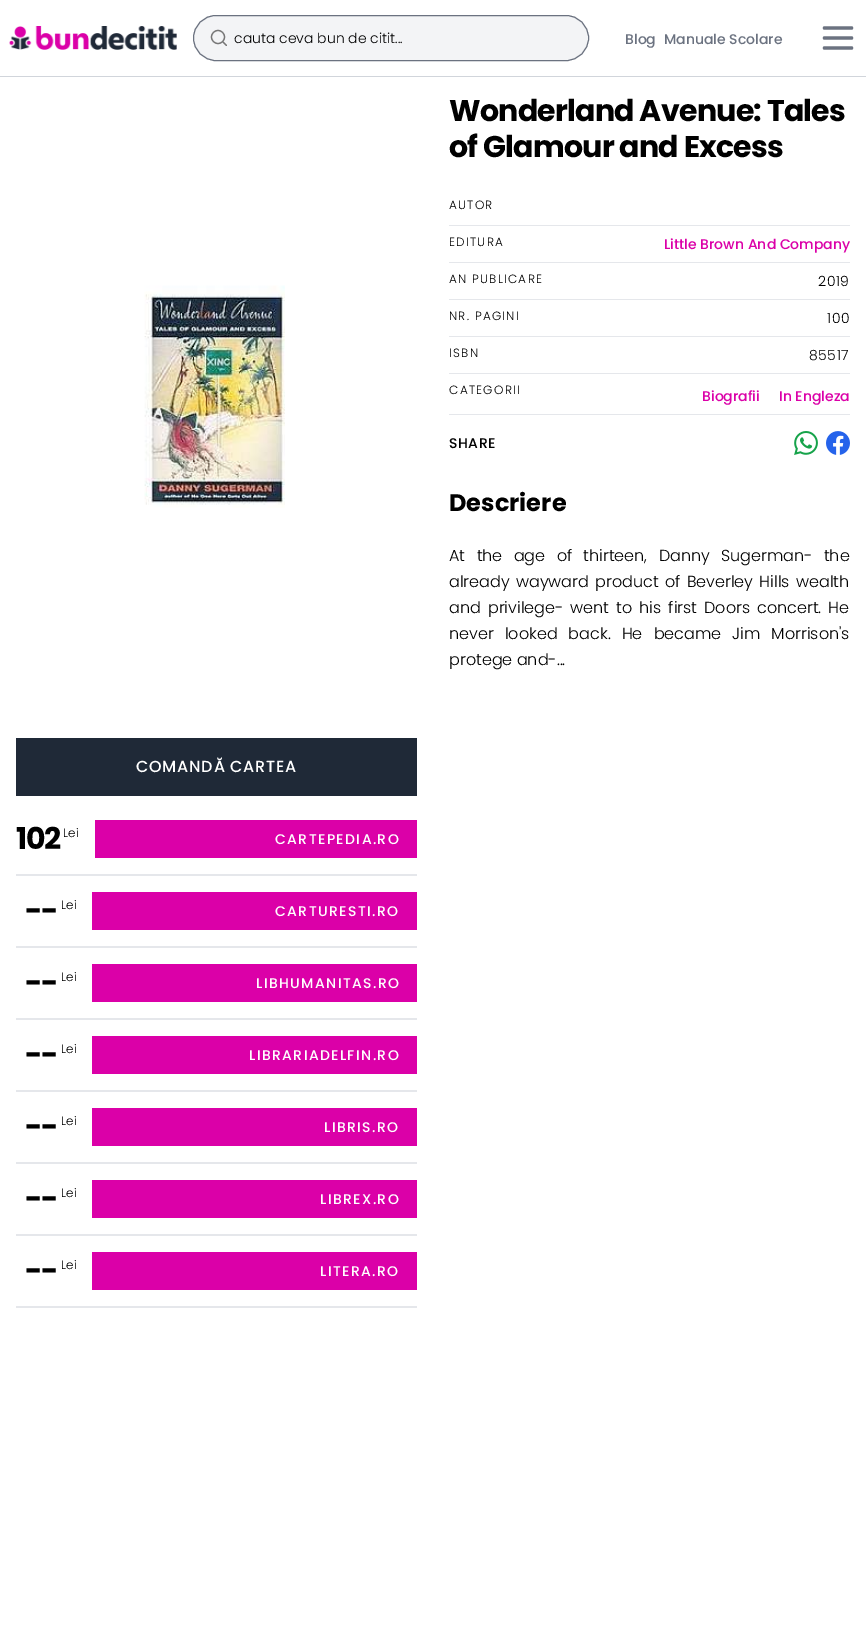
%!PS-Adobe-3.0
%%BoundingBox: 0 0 866 1631
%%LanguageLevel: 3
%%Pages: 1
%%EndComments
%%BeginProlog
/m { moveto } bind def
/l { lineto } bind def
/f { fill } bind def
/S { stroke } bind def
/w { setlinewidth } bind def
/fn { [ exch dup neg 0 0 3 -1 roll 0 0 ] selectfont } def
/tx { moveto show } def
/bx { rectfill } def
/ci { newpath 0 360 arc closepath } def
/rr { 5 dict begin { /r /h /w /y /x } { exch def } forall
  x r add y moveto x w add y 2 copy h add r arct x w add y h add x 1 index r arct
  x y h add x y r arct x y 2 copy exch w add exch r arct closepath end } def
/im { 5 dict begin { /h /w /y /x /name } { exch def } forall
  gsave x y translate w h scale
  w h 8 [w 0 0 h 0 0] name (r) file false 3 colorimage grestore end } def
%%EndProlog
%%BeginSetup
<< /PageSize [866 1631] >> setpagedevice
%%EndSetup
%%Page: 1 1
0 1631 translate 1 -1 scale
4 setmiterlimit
1 setgray
0 0 866 1631 bx
0.82 0.835 0.859 setrgbcolor
0 76 866 1 bx
(image0.raw) 9 26 168 24 im
0.953 0.957 0.965 setrgbcolor
193 15 396 46 23 rr f
0.467 setgray
1.2 w
218 37 6.5 ci S
1 setlinecap
1 setlinejoin
226.5 45.5 m 223 42 l S
0.42 0.447 0.502 setrgbcolor
1 w
0 setlinecap
0 setlinejoin
193.5 15.5 395 45 22.5 rr S
/Poppins-Light 14 fn
0 setgray
(cauta ceva bun de citit...) 234 43 tx
/Poppins-Medium 14 fn
0.42 0.447 0.502 setrgbcolor
(Blog) 625 44 tx
(Manuale Scolare) 664 44 tx
3.3 w
1 setlinecap
1 setlinejoin
824.5 28 m 851.5 28 l 824.5 38 m 851.5 38 l 824.5 48 m 851.5 48 l S
(image1.raw) 144 285 141 223 im
/Poppins-Bold 30 fn
0 setgray
449 121 m -0.75 0 (Wonderland Avenue: Tales) ashow
449 157 m -0.75 0 (of Glamour and Excess) ashow
/Poppins-Light 12 fn
449 209 m 1.25 0 (AUTOR) ashow
0.898 0.906 0.922 setrgbcolor
449 225 401 1 bx
0 setgray
449 246 m 1.25 0 (EDITURA) ashow
/Poppins-Medium 14 fn
0.859 0 0.659 setrgbcolor
(Little Brown And Company) 664 249 tx
0.898 0.906 0.922 setrgbcolor
449 262 401 1 bx
/Poppins-Light 12 fn
0 setgray
449 283 m 1.25 0 (AN PUBLICARE) ashow
/Poppins-Light 14 fn
818 286 m 0.5 0 (2019) ashow
0.898 0.906 0.922 setrgbcolor
449 299 401 1 bx
/Poppins-Light 12 fn
0 setgray
449 320 m 1.25 0 (NR. PAGINI) ashow
/Poppins-Light 14 fn
827 323 m 0.5 0 (100) ashow
0.898 0.906 0.922 setrgbcolor
449 336 401 1 bx
/Poppins-Light 12 fn
0 setgray
449 357 m 1.25 0 (ISBN) ashow
/Poppins-Light 14 fn
809 360 m 0.5 0 (85517) ashow
0.898 0.906 0.922 setrgbcolor
449 373 401 1 bx
/Poppins-Light 12 fn
0 setgray
449 394 m 1.25 0 (CATEGORII) ashow
/Poppins-Medium 14 fn
0.859 0 0.659 setrgbcolor
(Biografii) 702 401 tx
(In Engleza) 779 401 tx
0.898 0.906 0.922 setrgbcolor
449 414 401 1 bx
0 setgray
449 448 m 0.5 0 (SHARE) ashow
(image2.raw) 794 431 24 24 im
(image3.raw) 826 431 24 24 im
/Poppins-Bold 24 fn
(Descriere) 449 511 tx
/Poppins-Light 16 fn
449 561 m 7 0 32 (At the age of thirteen, Danny Sugerman- the) widthshow
449 587 m 2 0 32 (already wayward product of Beverley Hills wealth) widthshow
449 613 m 2.75 0 32 (and privilege- went to his first Doors concert. He) widthshow
449 639 m 6.75 0 32 (never looked back. He became Jim Morrison's) widthshow
(protege and-...) 449 665 tx
0.122 0.161 0.216 setrgbcolor
16 738 401 58 bx
/Poppins-Medium 16 fn
1 setgray
136 772 m 0.75 0 (COMANDĂ CARTEA) ashow
0.898 0.906 0.922 setrgbcolor
16 874 401 2 bx
/Poppins-Bold 30 fn
0 setgray
16 849 m -1.5 0 (102) ashow
/Poppins-Light 12 fn
(Lei) 63 837 tx
0.859 0 0.659 setrgbcolor
95 820 322 38 bx
/Poppins-Medium 14 fn
1 setgray
275 844 m 1.4 0 (CARTEPEDIA.RO) ashow
0.898 0.906 0.922 setrgbcolor
16 946 401 2 bx
/Poppins-Light 12 fn
0 setgray
(Lei) 61 909 tx
/Poppins-Bold 30 fn
25 921 m -1.5 0 (--) ashow
0.859 0 0.659 setrgbcolor
92 892 325 38 bx
/Poppins-Medium 14 fn
1 setgray
275 916 m 1.4 0 (CARTURESTI.RO) ashow
0.898 0.906 0.922 setrgbcolor
16 1018 401 2 bx
/Poppins-Light 12 fn
0 setgray
(Lei) 61 981 tx
/Poppins-Bold 30 fn
25 993 m -1.5 0 (--) ashow
0.859 0 0.659 setrgbcolor
92 964 325 38 bx
/Poppins-Medium 14 fn
1 setgray
256 988 m 1.4 0 (LIBHUMANITAS.RO) ashow
0.898 0.906 0.922 setrgbcolor
16 1090 401 2 bx
/Poppins-Light 12 fn
0 setgray
(Lei) 61 1053 tx
/Poppins-Bold 30 fn
25 1065 m -1.5 0 (--) ashow
0.859 0 0.659 setrgbcolor
92 1036 325 38 bx
/Poppins-Medium 14 fn
1 setgray
249 1060 m 1.4 0 (LIBRARIADELFIN.RO) ashow
0.898 0.906 0.922 setrgbcolor
16 1162 401 2 bx
/Poppins-Light 12 fn
0 setgray
(Lei) 61 1125 tx
/Poppins-Bold 30 fn
25 1137 m -1.5 0 (--) ashow
0.859 0 0.659 setrgbcolor
92 1108 325 38 bx
/Poppins-Medium 14 fn
1 setgray
324 1132 m 1.4 0 (LIBRIS.RO) ashow
0.898 0.906 0.922 setrgbcolor
16 1234 401 2 bx
/Poppins-Light 12 fn
0 setgray
(Lei) 61 1197 tx
/Poppins-Bold 30 fn
25 1209 m -1.5 0 (--) ashow
0.859 0 0.659 setrgbcolor
92 1180 325 38 bx
/Poppins-Medium 14 fn
1 setgray
320 1204 m 1.4 0 (LIBREX.RO) ashow
0.898 0.906 0.922 setrgbcolor
16 1306 401 2 bx
/Poppins-Light 12 fn
0 setgray
(Lei) 61 1269 tx
/Poppins-Bold 30 fn
25 1281 m -1.5 0 (--) ashow
0.859 0 0.659 setrgbcolor
92 1252 325 38 bx
/Poppins-Medium 14 fn
1 setgray
320 1276 m 1.4 0 (LITERA.RO) ashow
showpage
%%EOF
